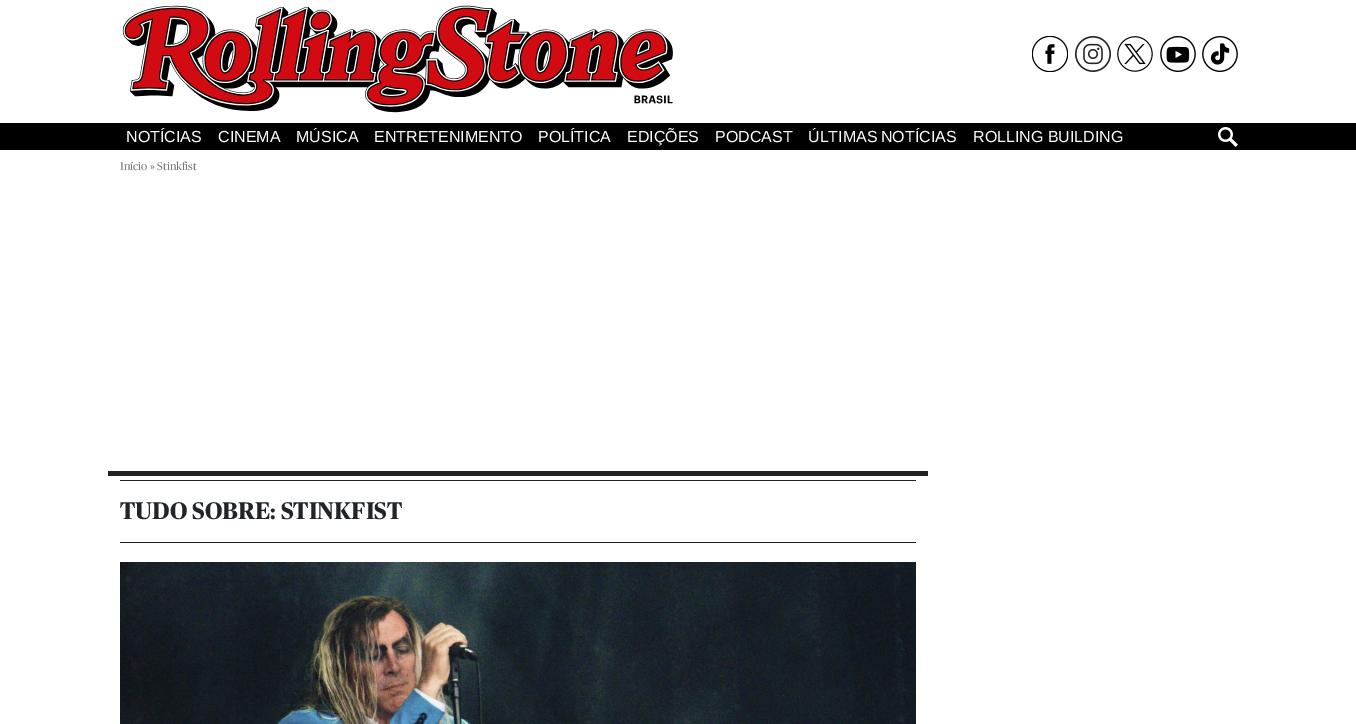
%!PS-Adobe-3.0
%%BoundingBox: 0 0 1356 724
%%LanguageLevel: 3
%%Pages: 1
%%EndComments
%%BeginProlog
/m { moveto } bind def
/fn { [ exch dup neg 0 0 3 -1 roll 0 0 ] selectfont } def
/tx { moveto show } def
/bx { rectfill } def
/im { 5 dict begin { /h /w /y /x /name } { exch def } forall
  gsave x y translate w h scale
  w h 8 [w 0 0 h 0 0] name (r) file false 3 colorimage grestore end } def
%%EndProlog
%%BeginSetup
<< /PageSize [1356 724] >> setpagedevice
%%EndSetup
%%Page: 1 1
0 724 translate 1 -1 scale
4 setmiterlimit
1 setgray
0 0 1356 724 bx
(image0.raw) 122 5 551 108 im
(image1.raw) 1032 36 36 36 im
(image2.raw) 1075 36 36 36 im
(image3.raw) 1117 36 36 36 im
(image4.raw) 1160 36 36 36 im
(image5.raw) 1202 36 36 36 im
0 setgray
0 123 1356 27 bx
/LiberationSans-Regular 16 fn
1 setgray
(NOTÍCIAS) 126 142 tx
(CINEMA) 218 142 tx
(MÚSICA) 296 142 tx
(ENTRETENIMENTO) 374 142 tx
(POLÍTICA) 538 142 tx
(EDIÇÕES) 627 142 tx
(PODCAST) 715 142 tx
808 142 m -1 0 32 (ÚLTIMAS NOTÍCIAS) widthshow
(ROLLING BUILDING) 973 142 tx
(image6.raw) 1218 127 20 20 im
/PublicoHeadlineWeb-Regular 11.25 fn
0.467 setgray
(Início » Stinkfist) 120 170 tx
0.133 setgray
108 471 820 5 bx
120 480 796 1 bx
120 542 796 1 bx
/PublicoHeadlineWeb-Bold 24 fn
0.129 0.145 0.161 setrgbcolor
(TUDO SOBRE: STINKFIST) 120 519 tx
(image7.raw) 120 562 796 162 im
showpage
%%EOF
